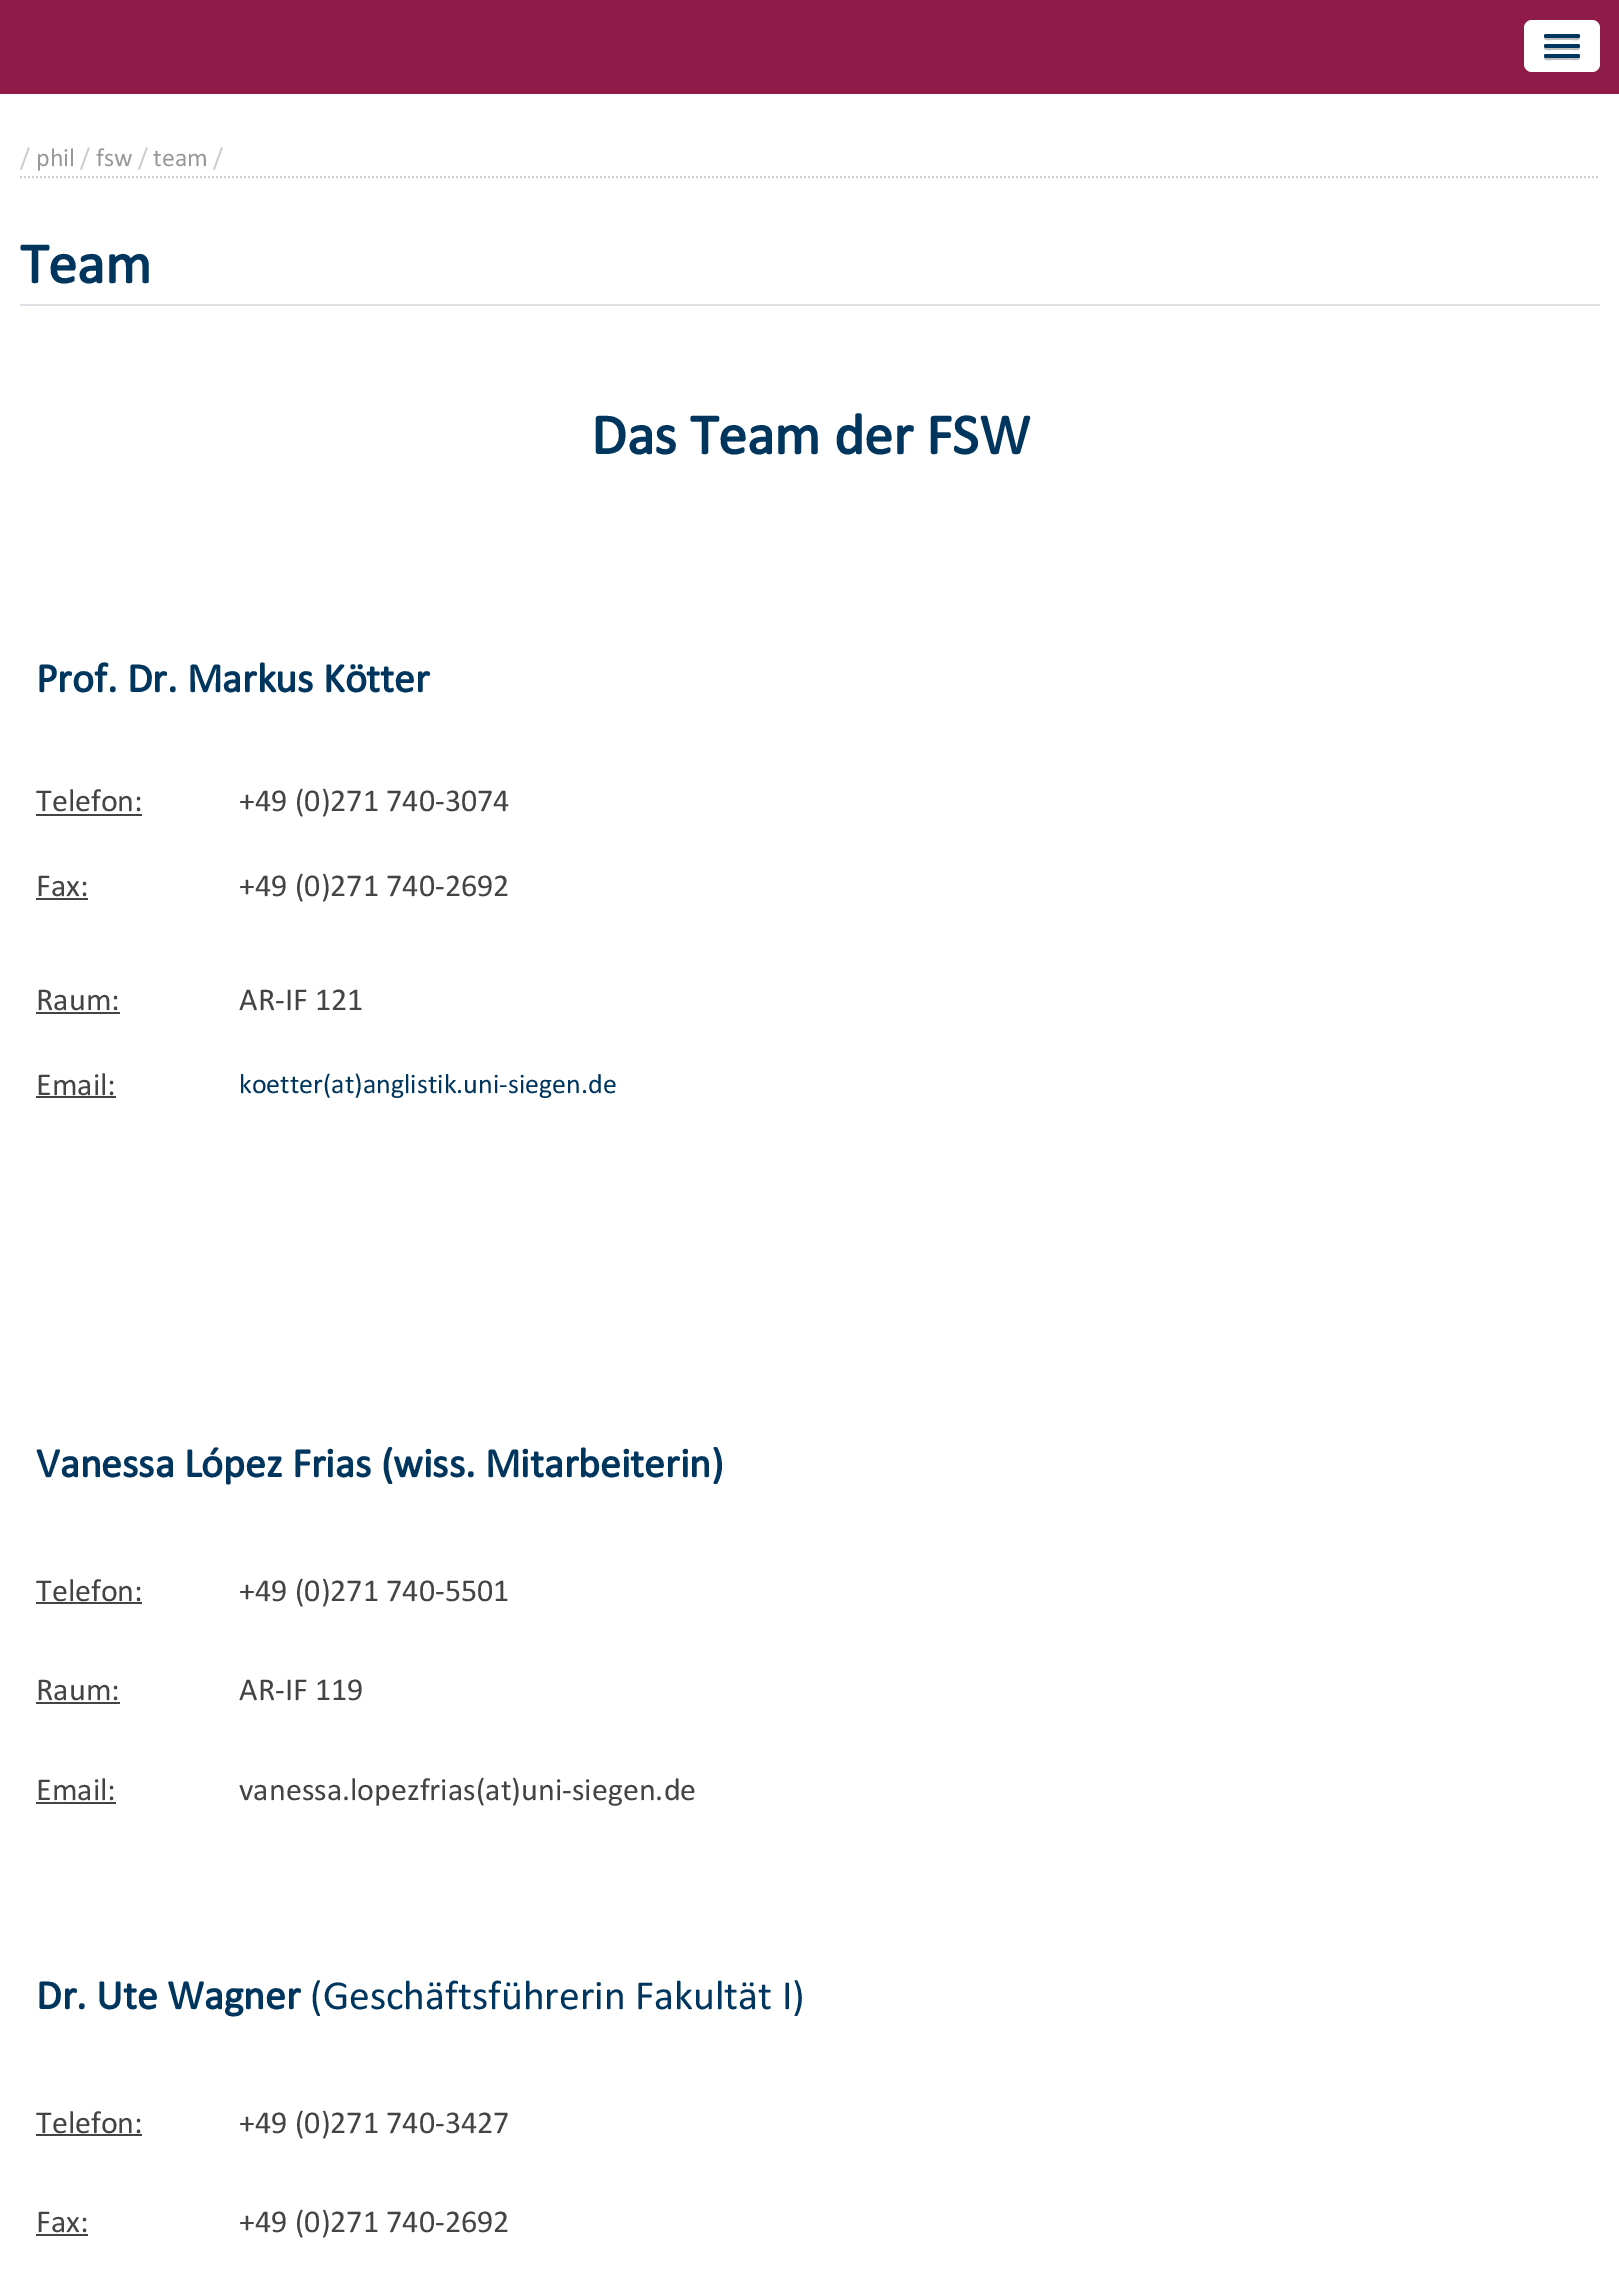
%!PS-Adobe-3.0
%%BoundingBox: 0 0 1619 2287
%%LanguageLevel: 3
%%Pages: 1
%%EndComments
%%BeginProlog
/m { moveto } bind def
/l { lineto } bind def
/c { curveto } bind def
/h { closepath } bind def
/f { fill } bind def
/S { stroke } bind def
/w { setlinewidth } bind def
/fn { [ exch dup neg 0 0 3 -1 roll 0 0 ] selectfont } def
/tx { moveto show } def
/bx { rectfill } def
/rr { 5 dict begin { /r /h /w /y /x } { exch def } forall
  x r add y moveto x w add y 2 copy h add r arct x w add y h add x 1 index r arct
  x y h add x y r arct x y 2 copy exch w add exch r arct closepath end } def
%%EndProlog
%%BeginSetup
<< /PageSize [1619 2287] >> setpagedevice
%%EndSetup
%%Page: 1 1
0 2287 translate 1 -1 scale
4 setmiterlimit
1 setgray
0 0 1619 2287 bx
0.557 0.106 0.282 setrgbcolor
0 0 1619 94 bx
1 setgray
1524 20 76 52 8 rr f
0.749 setgray
1544.5 37 m 1542 41 1551 40 1551.5 40 c 1572.5 40 l 1573 40 1582 41 1579.5 37 c 1579.5 37.5 1578.5 38 1578 38 c 1546 38 l 1545.5 38 1544.5 37.5 1544.5 37 c h f
0 0.212 0.369 setrgbcolor
1544 34 36 4 2 rr f
0.749 setgray
1544.5 47 m 1542 51 1551 50 1551.5 50 c 1572.5 50 l 1573 50 1582 51 1579.5 47 c 1579.5 47.5 1578.5 48 1578 48 c 1546 48 l 1545.5 48 1544.5 47.5 1544.5 47 c h f
0 0.212 0.369 setrgbcolor
1544 44 36 4 2 rr f
0.749 setgray
1544.5 57 m 1542 61 1551 60 1551.5 60 c 1572.5 60 l 1573 60 1582 61 1579.5 57 c 1579.5 57.5 1578.5 58 1578 58 c 1546 58 l 1545.5 58 1544.5 57.5 1544.5 57 c h f
0 0.212 0.369 setrgbcolor
1544 54 36 4 2 rr f
0.8 setgray
2 w
[2 2] 0 setdash
20 177 m 1600 177 l S
/Calibri-Regular 26 fn
(/) 20 166 tx
0.6 setgray
(phil) 36 166 tx
0.8 setgray
(/) 80 166 tx
0.6 setgray
(fsw) 96 166 tx
0.8 setgray
(/) 138 166 tx
0.6 setgray
(team) 153 166 tx
0.8 setgray
(/) 213 166 tx
0.871 0.886 0.902 setrgbcolor
20 304 1580 2 bx
/Calibri-Bold 58 fn
0 0.212 0.369 setrgbcolor
(Team) 20 283 tx
/Calibri-Bold 57.75 fn
(Das Team der FSW) 591 454 tx
/Calibri-Bold 41.6 fn
(Prof. Dr. Markus Kötter) 36 692 tx
/Calibri-Regular 32 fn
0.267 setgray
(Telefon:) 36 811 tx
36 814 106 2 bx
(+49 \(0\)271 740-3074) 239 811 tx
(Fax:) 36 896 tx
36 898 52 2 bx
(+49 \(0\)271 740-2692) 239 896 tx
(Raum:) 36 1010 tx
36 1012 84 2 bx
(AR-IF 121) 239 1010 tx
(Email:) 36 1095 tx
36 1096 80 2 bx
/Calibri-Regular 28 fn
0 0.212 0.369 setrgbcolor
(koetter\(at\)anglistik.uni-siegen.de) 239 1093 tx
/Calibri-Bold 41.6 fn
(Vanessa López Frias \(wiss. Mitarbeiterin\)) 36 1477 tx
/Calibri-Regular 32 fn
0.267 setgray
(Telefon:) 36 1601 tx
36 1602 106 2 bx
(+49 \(0\)271 740-5501) 239 1601 tx
(Raum:) 36 1700 tx
36 1702 84 2 bx
(AR-IF 119) 239 1700 tx
(Email:) 36 1800 tx
36 1802 80 2 bx
(vanessa.lopezfrias\(at\)uni-siegen.de) 239 1800 tx
/Calibri-Bold 41.6 fn
0 0.212 0.369 setrgbcolor
(Dr. Ute Wagner) 36 2009 tx
/Calibri-Regular 41.6 fn
(\(Geschäftsführerin Fakultät I\)) 310 2009 tx
/Calibri-Regular 32 fn
0.267 setgray
(Telefon:) 36 2133 tx
36 2134 106 2 bx
(+49 \(0\)271 740-3427) 239 2133 tx
(Fax:) 36 2232 tx
36 2234 52 2 bx
(+49 \(0\)271 740-2692) 239 2232 tx
showpage
%%EOF
